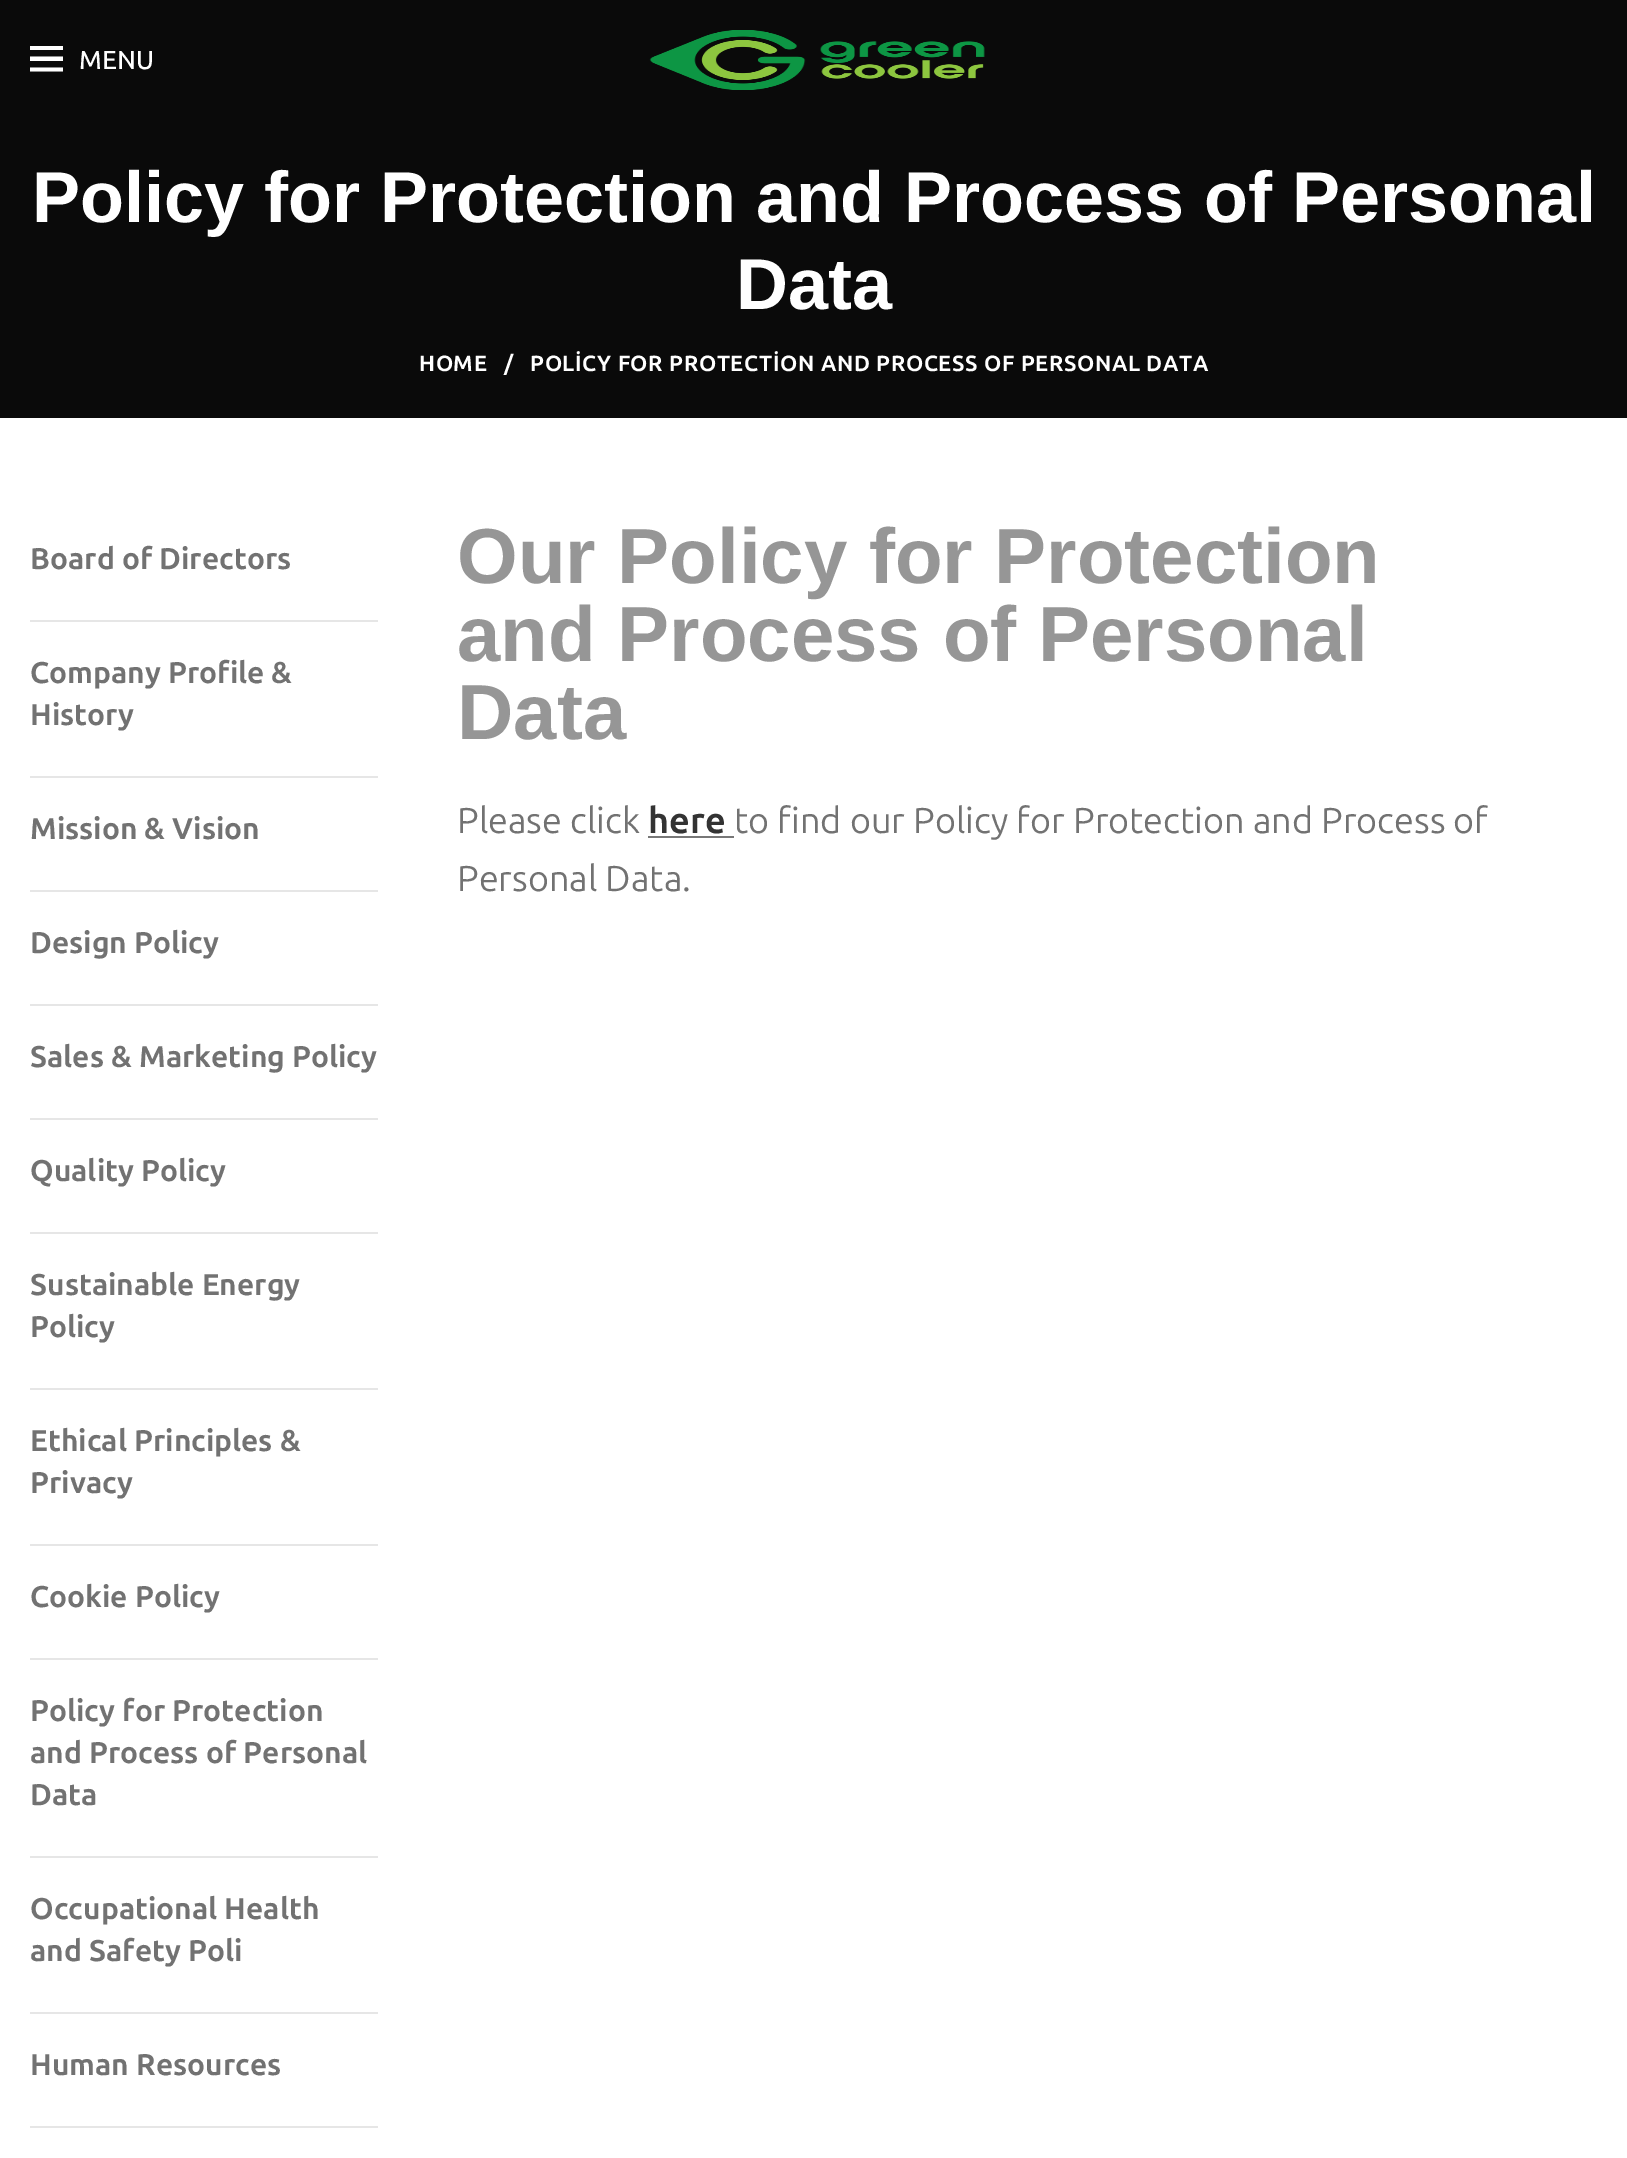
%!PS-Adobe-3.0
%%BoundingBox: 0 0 1627 2158
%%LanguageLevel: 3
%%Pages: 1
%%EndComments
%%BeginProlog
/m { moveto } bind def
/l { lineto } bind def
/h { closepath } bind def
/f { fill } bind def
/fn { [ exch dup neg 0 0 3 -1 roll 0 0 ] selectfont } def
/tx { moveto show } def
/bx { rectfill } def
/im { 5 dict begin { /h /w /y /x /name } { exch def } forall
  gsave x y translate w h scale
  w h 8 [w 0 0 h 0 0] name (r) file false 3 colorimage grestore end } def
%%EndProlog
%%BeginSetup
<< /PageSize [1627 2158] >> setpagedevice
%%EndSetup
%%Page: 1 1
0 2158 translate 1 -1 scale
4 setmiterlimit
1 setgray
0 0 1627 2158 bx
0.039 setgray
0 0 1627 418 bx
1 setgray
30 46 m 63 46 l 63 50 l 30 50 l h 30 56.5 m 63 56.5 l 63 61 l 30 61 l h 30 67.5 m 63 67.5 l 63 71.5 l 30 71.5 l h f
/Ubuntu-Medium 26 fn
(MENU) 79 69 tx
(image0.raw) 649 30 336 60 im
/LiberationSans-Bold 72 fn
(Policy for Protection and Process of Personal) 32 222 tx
(Data) 736 309 tx
/Ubuntu-Bold 22 fn
419 371 m 0.6 0 (HOME) ashow
504 371 m 0.6 0 (/) ashow
530 371 m 0.6 0 (POLİCY FOR PROTECTİON AND PROCESS OF PERSONAL DATA) ashow
/Ubuntu-Bold 30 fn
0.447 setgray
(Board of Directors) 30 569 tx
0.902 setgray
30 620 348 2 bx
0.447 setgray
(Company Profile &) 30 683 tx
(History) 30 725 tx
0.902 setgray
30 776 348 2 bx
0.447 setgray
(Mission & Vision) 30 839 tx
0.902 setgray
30 890 348 2 bx
0.447 setgray
(Design Policy) 30 953 tx
0.902 setgray
30 1004 348 2 bx
0.447 setgray
(Sales & Marketing Policy) 30 1067 tx
0.902 setgray
30 1118 348 2 bx
0.447 setgray
(Quality Policy) 30 1181 tx
0.902 setgray
30 1232 348 2 bx
0.447 setgray
(Sustainable Energy) 30 1295 tx
(Policy) 30 1337 tx
0.902 setgray
30 1388 348 2 bx
0.447 setgray
(Ethical Principles &) 30 1451 tx
(Privacy) 30 1493 tx
0.902 setgray
30 1544 348 2 bx
0.447 setgray
(Cookie Policy) 30 1607 tx
0.902 setgray
30 1658 348 2 bx
0.447 setgray
(Policy for Protection) 30 1721 tx
(and Process of Personal) 30 1763 tx
(Data) 30 1805 tx
0.902 setgray
30 1856 348 2 bx
0.447 setgray
(Occupational Health) 30 1919 tx
(and Safety Poli) 30 1961 tx
0.902 setgray
30 2012 348 2 bx
0.447 setgray
(Human Resources) 30 2075 tx
0.902 setgray
30 2126 348 2 bx
/LiberationSans-Bold 78 fn
0.588 setgray
(Our Policy for Protection) 457 583 tx
(and Process of Personal) 457 661 tx
(Data) 457 739 tx
/Ubuntu-Regular 36 fn
0.447 setgray
(Please click) 457 833 tx
/Ubuntu-Bold 36 fn
0.2 setgray
(here) 648 833 tx
0.467 setgray
648 836 86 2 bx
/Ubuntu-Regular 36 fn
0.447 setgray
(to find our Policy for Protection and Process of) 734 833 tx
(Personal Data.) 457 891 tx
showpage
%%EOF
